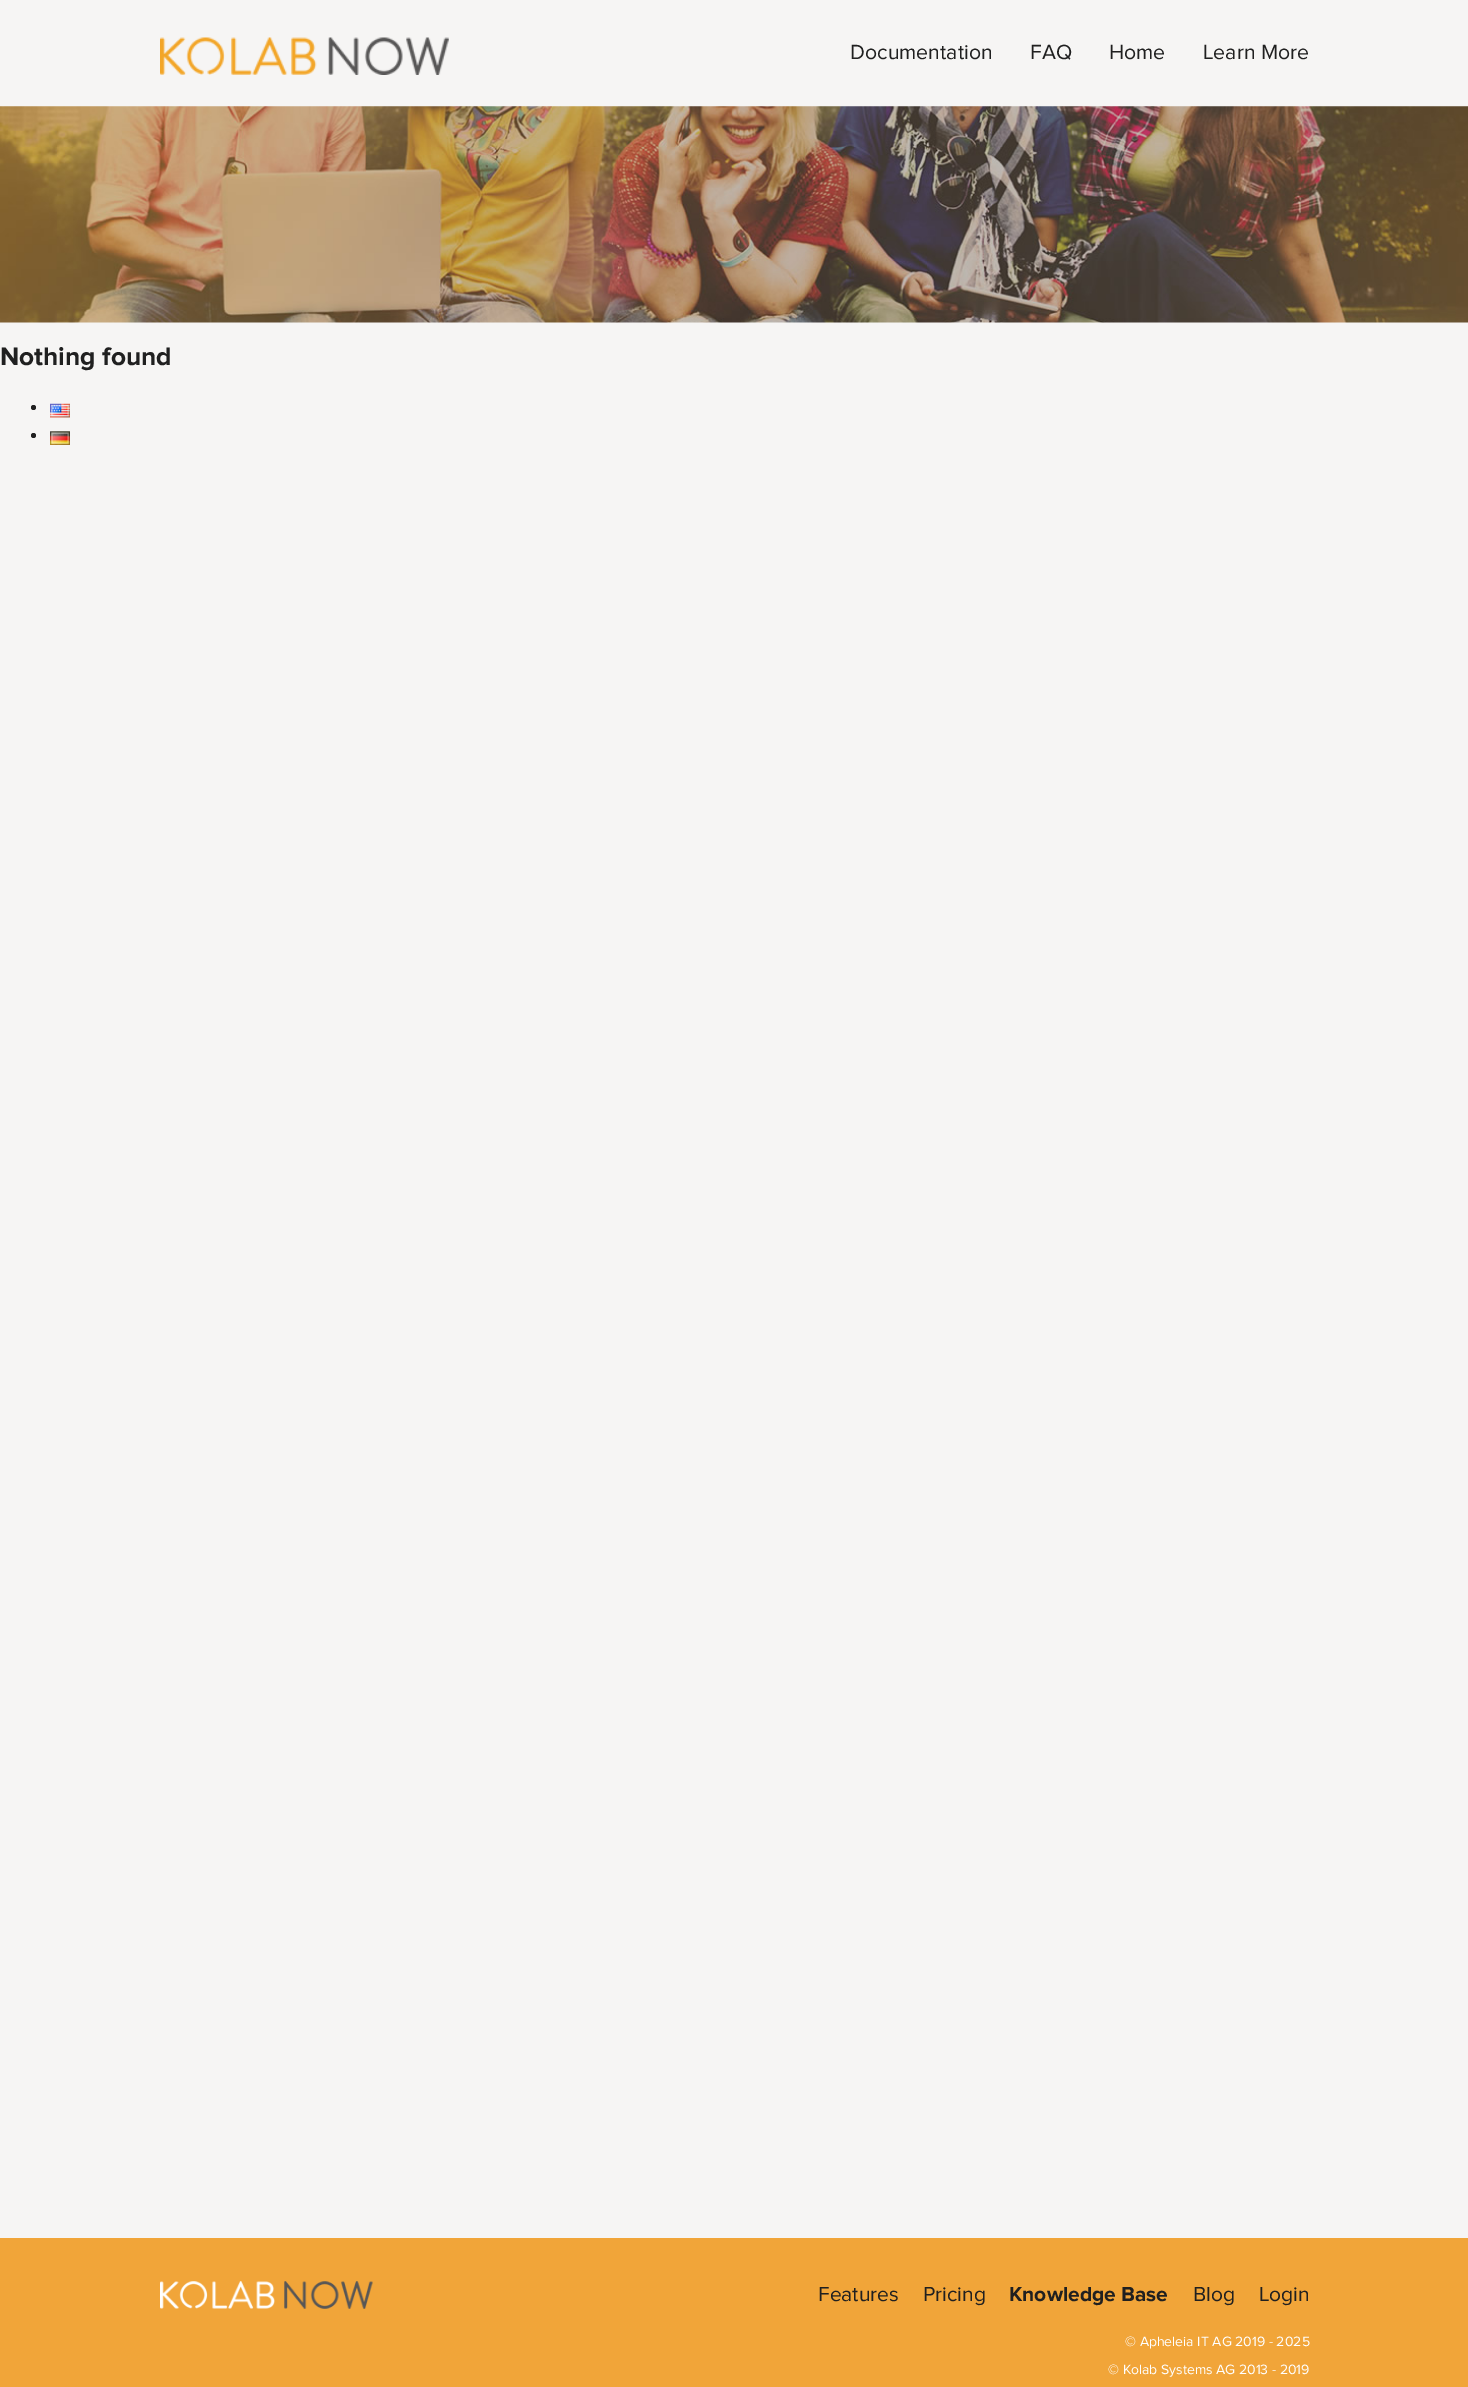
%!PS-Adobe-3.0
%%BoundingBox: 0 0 1468 2387
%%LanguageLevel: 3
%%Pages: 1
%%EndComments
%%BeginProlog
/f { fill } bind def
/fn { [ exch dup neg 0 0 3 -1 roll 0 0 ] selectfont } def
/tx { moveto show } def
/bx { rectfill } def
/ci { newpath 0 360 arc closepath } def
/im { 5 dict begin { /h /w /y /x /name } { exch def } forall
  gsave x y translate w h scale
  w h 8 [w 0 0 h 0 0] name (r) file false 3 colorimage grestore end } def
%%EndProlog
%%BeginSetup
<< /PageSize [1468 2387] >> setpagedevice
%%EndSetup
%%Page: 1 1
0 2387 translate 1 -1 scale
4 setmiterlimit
0.965 0.961 0.957 setrgbcolor
0 0 1468 2387 bx
(image0.raw) 160 37 289 38 im
/ProximaNova-Regular 21.25 fn
0.125 setgray
(Documentation) 850 59 tx
(FAQ) 1030 59 tx
(Home) 1109 59 tx
(Learn More) 1203 59 tx
(image1.raw) 0 106 1468 217 im
/ProximaNova-Bold 26.25 fn
(Nothing found) 0 365 tx
33.5 407.5 2.5 ci f
(image2.raw) 50 403 20 15 im
33.5 435.5 2.5 ci f
(image3.raw) 50 431 20 14 im
0.945 0.647 0.224 setrgbcolor
0 2238 1468 149 bx
(image4.raw) 160 2281 213 28 im
/ProximaNova-Regular 21 fn
0.125 setgray
(Features) 818 2301 tx
(Pricing) 923 2301 tx
/ProximaNova-Bold 21 fn
(Knowledge Base) 1009 2301 tx
/ProximaNova-Regular 21 fn
(Blog) 1193 2301 tx
(Login) 1259 2301 tx
/ProximaNova-Regular 14 fn
1 setgray
(© Apheleia IT AG 2019 - 2025) 1125 2346 tx
(© Kolab Systems AG 2013 - 2019) 1108 2374 tx
showpage
%%EOF
